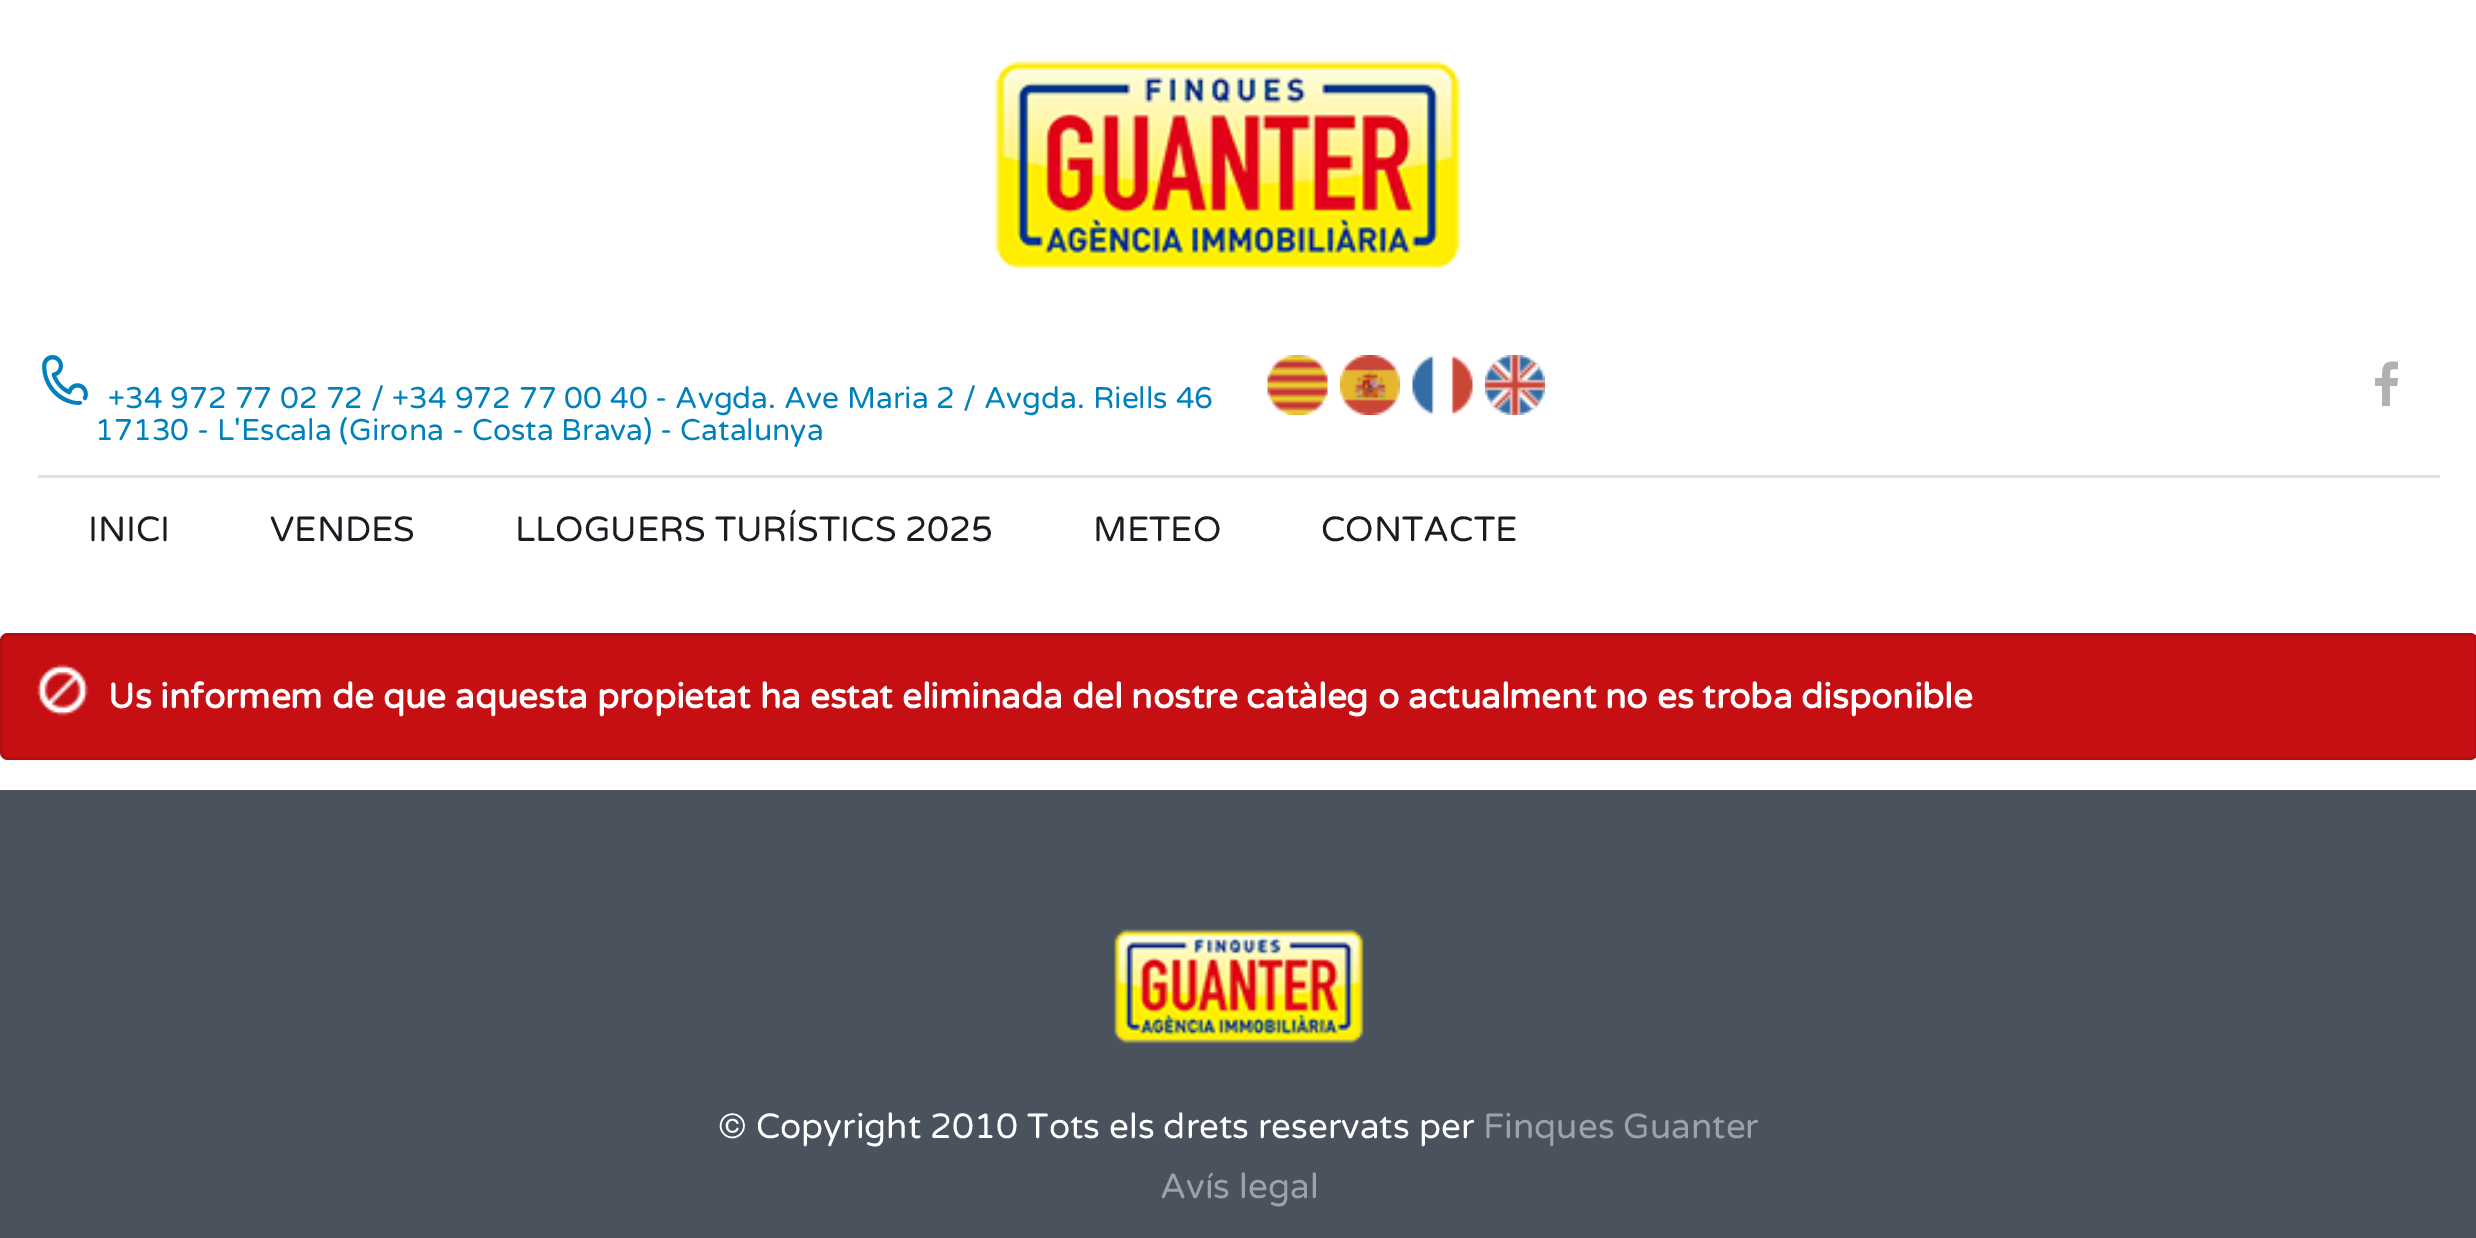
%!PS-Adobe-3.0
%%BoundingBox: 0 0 2476 1238
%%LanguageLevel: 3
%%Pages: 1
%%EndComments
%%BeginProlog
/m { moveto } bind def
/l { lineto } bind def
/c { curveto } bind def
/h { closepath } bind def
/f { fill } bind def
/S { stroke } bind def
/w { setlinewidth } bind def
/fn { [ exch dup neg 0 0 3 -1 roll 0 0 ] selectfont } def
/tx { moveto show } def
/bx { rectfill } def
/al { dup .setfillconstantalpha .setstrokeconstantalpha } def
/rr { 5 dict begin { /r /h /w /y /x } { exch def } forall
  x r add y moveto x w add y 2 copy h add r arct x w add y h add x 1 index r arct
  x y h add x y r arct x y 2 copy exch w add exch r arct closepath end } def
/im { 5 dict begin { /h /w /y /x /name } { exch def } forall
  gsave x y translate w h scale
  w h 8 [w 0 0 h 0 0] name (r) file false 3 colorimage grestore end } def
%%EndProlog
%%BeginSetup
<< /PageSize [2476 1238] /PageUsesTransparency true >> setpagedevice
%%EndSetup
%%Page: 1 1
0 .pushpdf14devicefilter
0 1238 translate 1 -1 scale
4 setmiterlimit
1 setgray
0 0 2476 1238 bx
(image0.raw) 994 59 467 210 im
0.886 setgray
38 475 2402 3 bx
(image1.raw) 42 355 46 50 im
/VarelaRound-Regular 30 fn
0 0.502 0.737 setrgbcolor
(+34 972 77 02 72 / +34 972 77 00 40 - Avgda. Ave Maria 2 / Avgda. Riells 46) 108 408 tx
(17130 - L'Escala \(Girona - Costa Brava\) - Catalunya) 95 440 tx
(image2.raw) 1267 355 61 60 im
(image3.raw) 1340 355 60 60 im
(image4.raw) 1412 355 61 60 im
(image5.raw) 1485 355 60 60 im
0.694 setgray
2398 362 m 2398 369 l 2389 369 2390 369 2390 378 c 2398 378 l 2397 386 l 2390 386 l 2390 406 l 2382 406 l 2382 386 l 2375 386 l 2375 378 l 2382 378 l 2382 365 2384 360 2398 362 c h f
/VarelaRound-Regular 35 fn
0.098 0.11 0.125 setrgbcolor
(INICI) 88 541 tx
(VENDES) 270 541 tx
(LLOGUERS TURÍSTICS 2025) 515 541 tx
(METEO) 1093 541 tx
(CONTACTE) 1321 541 tx
0.776 0.059 0.075 setrgbcolor
0 633 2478 127 8 rr f
0.1 al
0 setgray
3 w
1.5 634.5 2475 124 6.5 rr S
1 al
(image6.raw) 37 664 52 52 im
/VarelaRound-Bold 35 fn
1 setgray
(Us informem de que aquesta propietat ha estat eliminada del nostre catàleg o actualment no es troba disponible) 108 708 tx
0.29 0.322 0.365 setrgbcolor
0 790 2476 448 bx
(image7.raw) 1114 929 250 115 im
/VarelaRound-Regular 35 fn
1 setgray
(© Copyright 2010 Tots els drets reservats per) 718 1138 tx
0.604 0.635 0.667 setrgbcolor
(Finques Guanter) 1483 1138 tx
(Avís legal) 1160 1198 tx
.poppdf14devicefilter showpage
%%EOF
